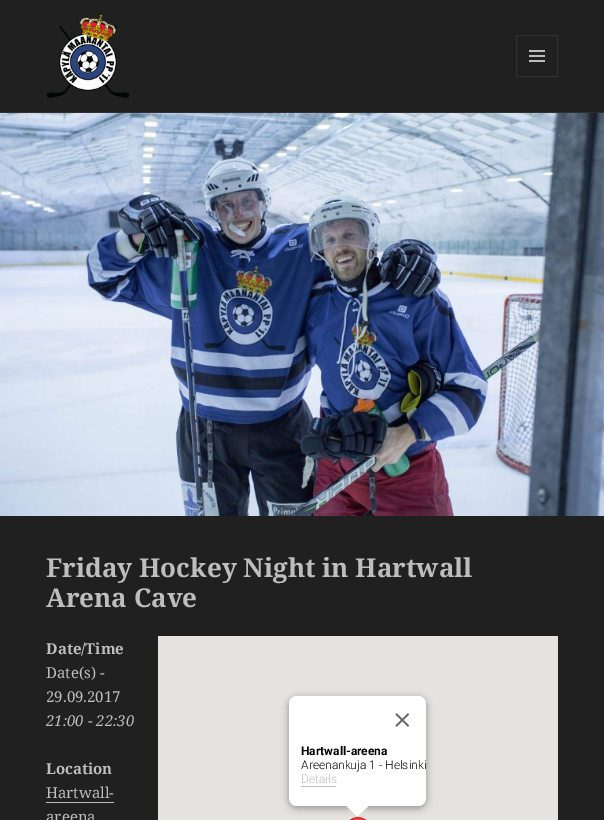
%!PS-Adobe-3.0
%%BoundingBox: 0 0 604 820
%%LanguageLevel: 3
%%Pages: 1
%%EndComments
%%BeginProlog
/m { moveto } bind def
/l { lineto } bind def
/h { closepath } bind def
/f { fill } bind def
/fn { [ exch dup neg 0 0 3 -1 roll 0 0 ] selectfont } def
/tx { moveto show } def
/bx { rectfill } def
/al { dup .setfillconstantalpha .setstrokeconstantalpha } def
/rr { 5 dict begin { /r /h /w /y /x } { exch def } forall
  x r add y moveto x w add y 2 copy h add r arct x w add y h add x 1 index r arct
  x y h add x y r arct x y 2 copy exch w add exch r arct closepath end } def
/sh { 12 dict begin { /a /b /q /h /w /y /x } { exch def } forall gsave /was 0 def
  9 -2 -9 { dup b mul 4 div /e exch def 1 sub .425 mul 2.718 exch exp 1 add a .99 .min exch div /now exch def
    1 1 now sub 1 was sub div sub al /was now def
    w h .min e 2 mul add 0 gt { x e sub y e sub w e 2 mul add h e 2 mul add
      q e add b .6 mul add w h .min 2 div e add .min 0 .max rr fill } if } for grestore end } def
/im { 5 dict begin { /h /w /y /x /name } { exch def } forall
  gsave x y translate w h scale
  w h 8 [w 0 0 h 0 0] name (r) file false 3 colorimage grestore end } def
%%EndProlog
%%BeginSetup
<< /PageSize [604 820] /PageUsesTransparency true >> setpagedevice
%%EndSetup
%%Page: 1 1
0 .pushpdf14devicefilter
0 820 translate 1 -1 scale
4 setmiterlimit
0.125 setgray
0 0 604 820 bx
0.188 setgray
0 112 604 1 bx
(image0.raw) 46 14 84 84 im
516.5 35.5 41 41 rectstroke
(image1.raw) 529 50 16 12 im
(image2.raw) 0 113 604 403 im
/NotoSerif-Bold 26 fn
0.745 setgray
(Friday Hockey Night in Hartwall) 46 577 tx
(Arena Cave) 46 607 tx
/NotoSerif-Bold 15 fn
(Date/Time) 46 654 tx
/NotoSerif-Regular 15 fn
(Date\(s\) -) 46 678 tx
(29.09.2017) 46 702 tx
/NotoSerif-Italic 15 fn
(21:00 - 22:30) 46 726 tx
/NotoSerif-Bold 15 fn
(Location) 46 774 tx
/NotoSerif-Regular 15 fn
(Hartwall-) 46 798 tx
46 802 68 1 bx
(areena) 46 822 tx
0.898 0.89 0.875 setrgbcolor
158 636 400 184 bx
(image4.raw) 350 817 16 3 im
0 setgray
288 697 139 112 9 3.5 0.3 sh
1 setgray
289 696 137 110 8 rr f
(image3.raw) 395 713 15 14 im
/Roboto-Bold 12 fn
0 setgray
(Hartwall-areena) 301 755 tx
/Roboto-Light 12 fn
(Areenankuja 1 - Helsinki) 301 769 tx
0.745 setgray
(Details) 301 783 tx
301 786 35 1 bx
1 setgray
346 805 m 346 805.5 l 357.5 816.5 l 369.5 805 l h f
.poppdf14devicefilter showpage
%%EOF
